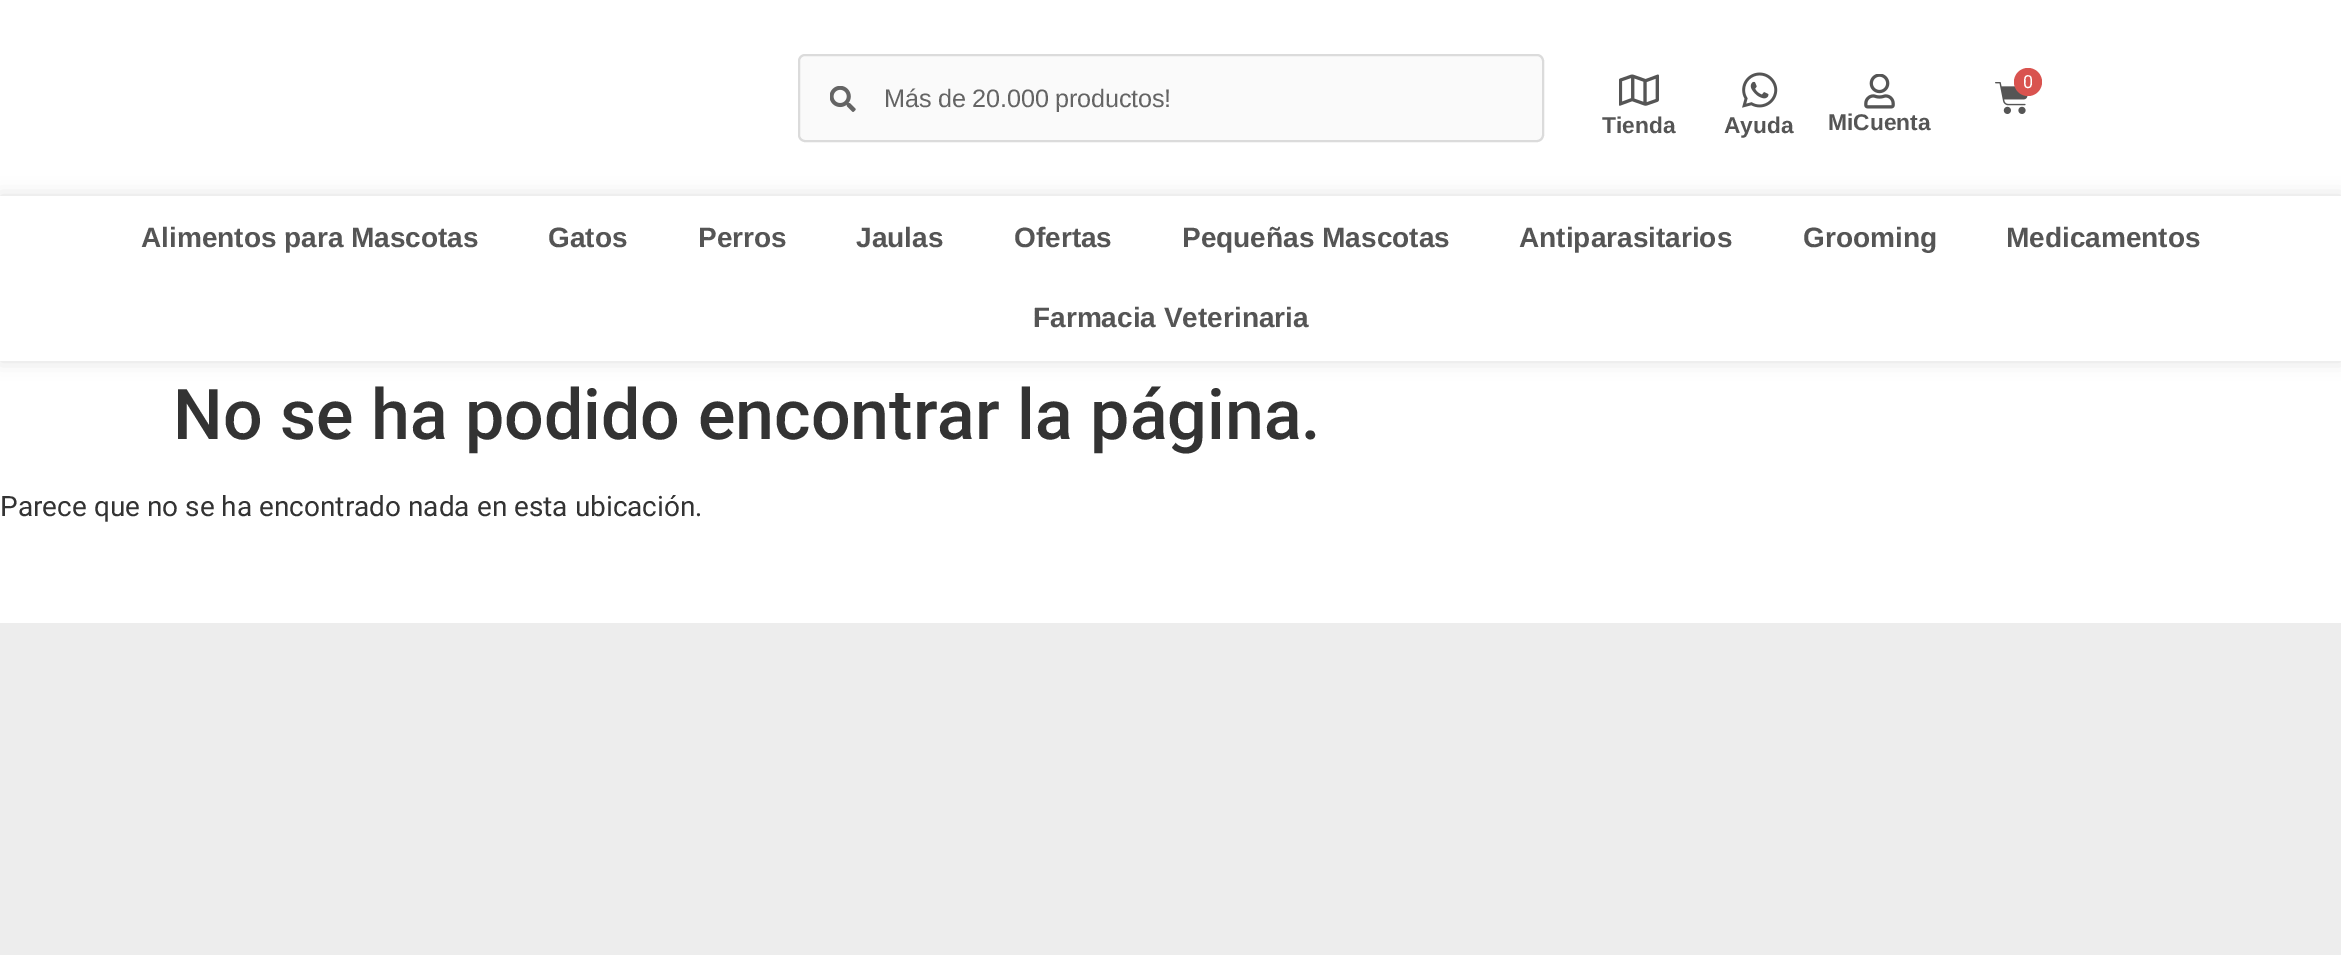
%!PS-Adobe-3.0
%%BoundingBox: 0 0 2341 955
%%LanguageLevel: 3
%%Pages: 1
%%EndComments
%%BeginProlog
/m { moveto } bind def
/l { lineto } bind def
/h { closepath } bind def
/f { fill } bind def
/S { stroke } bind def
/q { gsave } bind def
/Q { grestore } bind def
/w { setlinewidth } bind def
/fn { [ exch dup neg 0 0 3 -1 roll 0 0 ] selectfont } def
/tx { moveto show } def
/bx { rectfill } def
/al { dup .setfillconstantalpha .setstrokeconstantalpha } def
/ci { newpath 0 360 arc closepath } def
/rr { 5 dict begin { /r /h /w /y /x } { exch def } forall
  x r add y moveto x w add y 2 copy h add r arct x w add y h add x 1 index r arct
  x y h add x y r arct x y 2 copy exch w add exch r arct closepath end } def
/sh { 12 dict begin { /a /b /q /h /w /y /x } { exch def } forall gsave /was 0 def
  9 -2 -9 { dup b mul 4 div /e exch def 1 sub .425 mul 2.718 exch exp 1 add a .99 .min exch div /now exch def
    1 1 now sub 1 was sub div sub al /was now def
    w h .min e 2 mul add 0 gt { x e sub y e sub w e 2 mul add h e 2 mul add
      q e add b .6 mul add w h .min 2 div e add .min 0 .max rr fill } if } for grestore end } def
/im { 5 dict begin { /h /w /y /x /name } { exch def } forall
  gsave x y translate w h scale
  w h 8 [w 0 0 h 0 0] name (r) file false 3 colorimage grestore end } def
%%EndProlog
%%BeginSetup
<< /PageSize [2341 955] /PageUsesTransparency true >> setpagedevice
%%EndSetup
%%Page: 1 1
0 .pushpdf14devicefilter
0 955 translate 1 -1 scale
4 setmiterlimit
1 setgray
0 0 2341 955 bx
0.98 setgray
799 55 744 86 6 rr q f Q
0.859 setgray
2 w
S
(image0.raw) 830 86 26 26 im
q
884 84 604 28 rectclip
/LiberationSans-Regular 25.25 fn
0.392 setgray
884 107 m -0.2 0 (Más de 20.000 productos!) ashow
Q
(image1.raw) 1995 82 33 32 im
0.851 0.325 0.31 setrgbcolor
2028 82 14 ci f
/Roboto-Regular 18 fn
1 setgray
(0) 2023 88 tx
(image2.raw) 1619 74 40 32 im
/LiberationSans-Bold 22.75 fn
0.333 setgray
(Tienda) 1602 133 tx
(image3.raw) 1742 72 36 36 im
(Ayuda) 1724 133 tx
(image4.raw) 1864 74 31 35 im
(MiCuenta) 1828 130 tx
q
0 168 m 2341 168 l 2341 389 l 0 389 l h 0 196 m 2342 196 l 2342 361 l 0 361 l h eoclip newpath
0.859 setgray
0 196 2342 165 0 9 1 sh
Q
/LiberationSans-Bold 28 fn
(Alimentos para Mascotas) 141 247 tx
(Gatos) 548 247 tx
(Perros) 698 247 tx
(Jaulas) 856 247 tx
(Ofertas) 1014 247 tx
(Pequeñas Mascotas) 1182 247 tx
(Antiparasitarios) 1519 247 tx
(Grooming) 1803 247 tx
(Medicamentos) 2006 247 tx
(Farmacia Veterinaria) 1033 327 tx
/Roboto-Medium 70 fn
0.2 setgray
(No se ha podido encontrar la página.) 173 439 tx
/Roboto-Regular 28 fn
(Parece que no se ha encontrado nada en esta ubicación.) 0 516 tx
0.929 setgray
0 623 2341 332 bx
.poppdf14devicefilter showpage
%%EOF
